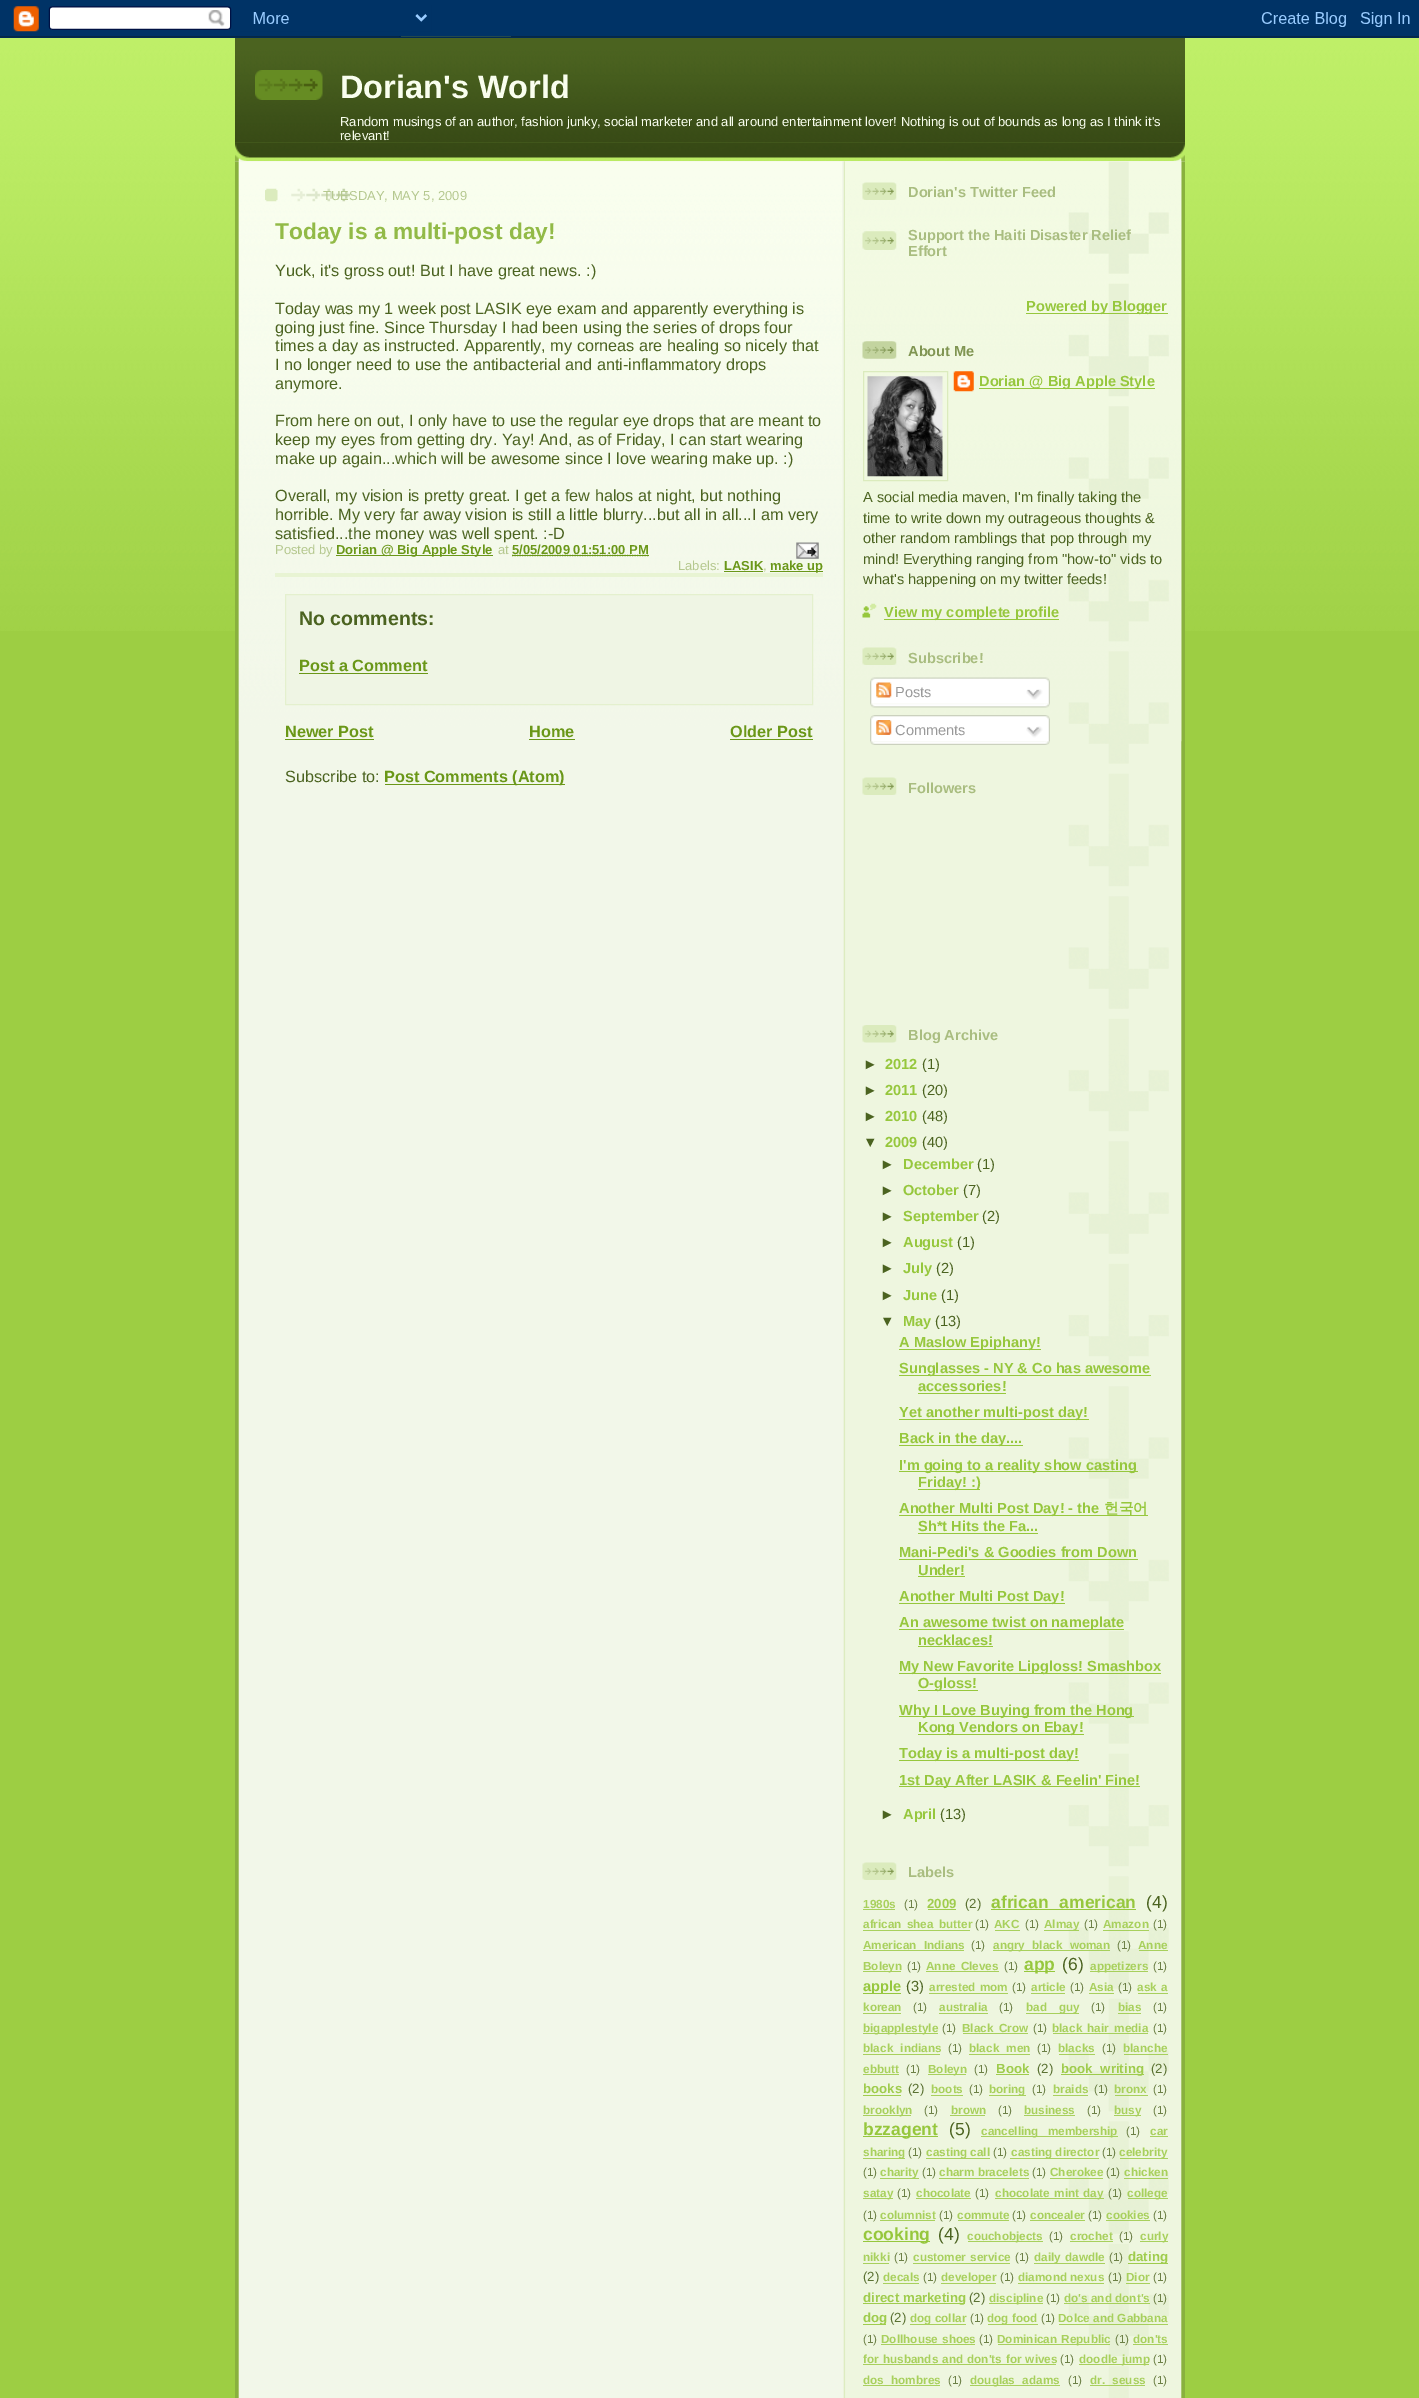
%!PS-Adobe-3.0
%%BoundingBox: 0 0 1419 2398
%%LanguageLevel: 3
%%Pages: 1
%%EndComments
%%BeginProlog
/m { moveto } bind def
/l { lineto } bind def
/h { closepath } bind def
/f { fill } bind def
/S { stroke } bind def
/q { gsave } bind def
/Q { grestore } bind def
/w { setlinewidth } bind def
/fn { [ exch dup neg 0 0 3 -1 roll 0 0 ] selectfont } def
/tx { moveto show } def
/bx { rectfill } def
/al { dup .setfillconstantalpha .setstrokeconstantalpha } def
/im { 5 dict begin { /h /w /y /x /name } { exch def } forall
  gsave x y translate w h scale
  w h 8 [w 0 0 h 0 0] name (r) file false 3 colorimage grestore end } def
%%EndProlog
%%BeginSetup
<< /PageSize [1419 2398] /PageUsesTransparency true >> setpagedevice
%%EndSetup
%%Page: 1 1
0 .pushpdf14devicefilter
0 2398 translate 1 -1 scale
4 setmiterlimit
0.616 0.808 0.263 setrgbcolor
0 0 1419 2398 bx
(image0.raw) 0 36 1419 595 im
(image1.raw) 0 0 1419 38 im
(image2.raw) 235 143 950 19 im
0.294 0.388 0.125 setrgbcolor
235 142 950 1 bx
(image3.raw) 235 38 950 105 im
(image4.raw) 255 70 68 30 im
/LiberationSans-Bold 32.5 fn
0.976 0.996 0.933 setrgbcolor
(Dorian's World) 340 98 tx
/LiberationSans-Regular 13 fn
(Random musings of an author, fashion junky, social marketer and all around entertainment lover! Nothing is out of bounds as long as I think it's) 340 126 tx
(relevant!) 340 140 tx
(image5.raw) 235 161 950 2237 im
(image6.raw) 238 161 604 580 im
(image7.raw) 265 188 13 14 im
(image8.raw) 291 188 59 14 im
0.71 0.784 0.561 setrgbcolor
(TUESDAY, MAY 5, 2009) 323 200 tx
0.91 0.957 0.827 setrgbcolor
275 573 548 4 bx
/LiberationSans-Bold 22.75 fn
0.573 0.729 0.278 setrgbcolor
(Today is a multi-post day!) 275 239 tx
/LiberationSans-Regular 16.25 fn
0.294 0.388 0.125 setrgbcolor
(Yuck, it's gross out! But I have great news. :\)) 275 276 tx
(Today was my 1 week post LASIK eye exam and apparently everything is) 275 314 tx
(going just fine. Since Thursday I had been using the series of drops four) 275 333 tx
(times a day as instructed. Apparently, my corneas are healing so nicely that) 275 351 tx
(I no longer need to use the antibacterial and anti-inflammatory drops) 275 370 tx
(anymore.) 275 389 tx
(From here on out, I only have to use the regular eye drops that are meant to) 275 426 tx
(keep my eyes from getting dry. Yay! And, as of Friday, I can start wearing) 275 445 tx
(make up again...which will be awesome since I love wearing make up. :\)) 275 464 tx
(Overall, my vision is pretty great. I get a few halos at night, but nothing) 275 501 tx
(horrible. My very far away vision is still a little blurry...but all in all...I am very) 275 520 tx
(satisfied...the money was well spent. :-D) 275 539 tx
/LiberationSans-Regular 13 fn
0.71 0.784 0.561 setrgbcolor
(Posted by) 275 554 tx
0.416 0.592 0.094 setrgbcolor
336 555 157 1 bx
/LiberationSans-Bold 13 fn
(Dorian @ Big Apple Style) 336 554 tx
/LiberationSans-Regular 13 fn
0.71 0.784 0.561 setrgbcolor
(at) 498 554 tx
0.416 0.592 0.094 setrgbcolor
1.2 w
[1.25 1.25] 0 setdash
512 555.5 m 648.5 555.5 l S
/LiberationSans-Bold 13 fn
(5/05/2009 01:51:00 PM) 512 554 tx
513 555 136 1 bx
(image9.raw) 796 542 23 17 im
/LiberationSans-Regular 13 fn
0.71 0.784 0.561 setrgbcolor
(Labels:) 678 570 tx
/LiberationSans-Bold 13 fn
0.416 0.592 0.094 setrgbcolor
(LASIK) 724 570 tx
/LiberationSans-Regular 13 fn
0.71 0.784 0.561 setrgbcolor
(,) 763 570 tx
0.416 0.592 0.094 setrgbcolor
724 571 39 1 bx
770 571 53 1 bx
/LiberationSans-Bold 13 fn
(make up) 770 570 tx
0.937 0.961 0.894 setrgbcolor
285.5 594.5 m 812.5 594.5 l 812.5 704.5 l 285.5 704.5 l h q f Q
0.894 0.941 0.808 setrgbcolor
1 w
[] 0 setdash
S
/LiberationSans-Bold 19.5 fn
0.294 0.388 0.125 setrgbcolor
(No comments:) 299 625 tx
/LiberationSans-Bold 16.25 fn
0.416 0.592 0.094 setrgbcolor
(Post a Comment) 299 671 tx
299 673 129 1 bx
(Newer Post) 285 737 tx
285 739 89 1 bx
(Home) 529 737 tx
529 739 46 1 bx
(Older Post) 730 737 tx
730 739 83 1 bx
/LiberationSans-Regular 16.25 fn
0.294 0.388 0.125 setrgbcolor
(Subscribe to:) 285 782 tx
0.416 0.592 0.094 setrgbcolor
385 784 180 1 bx
/LiberationSans-Bold 16.25 fn
(Post Comments \(Atom\)) 384 782 tx
(image10.raw) 845 161 337 581 im
(image11.raw) 1068 161 101 2237 im
(image12.raw) 862 182 35 18 im
/LiberationSans-Bold 14.6 fn
0.663 0.741 0.502 setrgbcolor
(Dorian's Twitter Feed) 908 197 tx
(image13.raw) 862 231 35 19 im
(Support the Haiti Disaster Relief) 908 240 tx
(Effort) 908 256 tx
0.588 0.78 0.239 setrgbcolor
1026 313 142 1 bx
(Powered by Blogger) 1026 311 tx
(image14.raw) 862 341 35 18 im
0.502 0.584 0.322 setrgbcolor
(About Me) 908 356 tx
0.859 0.922 0.741 setrgbcolor
863.5 371.5 84 109 rectstroke
(image15.raw) 867 376 76 101 im
(image16.raw) 953 371 21 21 im
0.588 0.78 0.239 setrgbcolor
979 388 176 1 bx
(Dorian @ Big Apple Style) 979 386 tx
/LiberationSans-Regular 14.6 fn
0.294 0.388 0.125 setrgbcolor
(A social media maven, I'm finally taking the) 863 502 tx
(time to write down my outrageous thoughts &) 863 523 tx
(other random ramblings that pop through my) 863 543 tx
(mind! Everything ranging from "how-to" vids to) 863 564 tx
(what's happening on my twitter feeds!) 863 584 tx
(image17.raw) 862 603 15 15 im
0.588 0.78 0.239 setrgbcolor
884 619 175 1 bx
/LiberationSans-Bold 14.6 fn
(View my complete profile) 884 617 tx
(image18.raw) 862 647 35 18 im
0.663 0.741 0.502 setrgbcolor
(Subscribe!) 908 663 tx
(image19.raw) 870 677 180 27 im
(image20.raw) 876 682 16 16 im
/LiberationSans-Regular 14.6 fn
0.6 setgray
(Posts) 895 697 tx
(image21.raw) 1026 689 17 11 im
(image22.raw) 870 703 180 5 im
(image23.raw) 870 715 180 27 im
(image24.raw) 876 720 16 15 im
(Comments) 895 735 tx
(image25.raw) 1026 726 17 12 im
(image26.raw) 870 741 180 4 im
(image27.raw) 862 777 35 18 im
/LiberationSans-Bold 14.6 fn
0.663 0.741 0.502 setrgbcolor
(Followers) 908 793 tx
(image28.raw) 862 1025 35 18 im
(Blog Archive) 908 1040 tx
0.294 0.388 0.125 setrgbcolor
(►) 863 1069 tx
0.588 0.78 0.239 setrgbcolor
(2012) 885 1069 tx
/LiberationSans-Regular 14.6 fn
0.294 0.388 0.125 setrgbcolor
(\(1\)) 922 1069 tx
/LiberationSans-Bold 14.6 fn
(►) 863 1095 tx
0.588 0.78 0.239 setrgbcolor
(2011) 885 1095 tx
/LiberationSans-Regular 14.6 fn
0.294 0.388 0.125 setrgbcolor
(\(20\)) 922 1095 tx
/LiberationSans-Bold 14.6 fn
(►) 863 1121 tx
0.588 0.78 0.239 setrgbcolor
(2010) 885 1121 tx
/LiberationSans-Regular 14.6 fn
0.294 0.388 0.125 setrgbcolor
(\(48\)) 922 1121 tx
/LiberationSans-Bold 14.6 fn
(▼) 863 1147 tx
0.588 0.78 0.239 setrgbcolor
(2009) 885 1147 tx
/LiberationSans-Regular 14.6 fn
0.294 0.388 0.125 setrgbcolor
(\(40\)) 922 1147 tx
/LiberationSans-Bold 14.6 fn
(►) 880 1169 tx
0.588 0.78 0.239 setrgbcolor
(December) 903 1169 tx
/LiberationSans-Regular 14.6 fn
0.294 0.388 0.125 setrgbcolor
(\(1\)) 977 1169 tx
/LiberationSans-Bold 14.6 fn
(►) 880 1195 tx
0.588 0.78 0.239 setrgbcolor
(October) 903 1195 tx
/LiberationSans-Regular 14.6 fn
0.294 0.388 0.125 setrgbcolor
(\(7\)) 963 1195 tx
/LiberationSans-Bold 14.6 fn
(►) 880 1221 tx
0.588 0.78 0.239 setrgbcolor
(September) 903 1221 tx
/LiberationSans-Regular 14.6 fn
0.294 0.388 0.125 setrgbcolor
(\(2\)) 982 1221 tx
/LiberationSans-Bold 14.6 fn
(►) 880 1247 tx
0.588 0.78 0.239 setrgbcolor
(August) 903 1247 tx
/LiberationSans-Regular 14.6 fn
0.294 0.388 0.125 setrgbcolor
(\(1\)) 957 1247 tx
/LiberationSans-Bold 14.6 fn
(►) 880 1273 tx
0.588 0.78 0.239 setrgbcolor
(July) 903 1273 tx
/LiberationSans-Regular 14.6 fn
0.294 0.388 0.125 setrgbcolor
(\(2\)) 936 1273 tx
/LiberationSans-Bold 14.6 fn
(►) 880 1300 tx
0.588 0.78 0.239 setrgbcolor
(June) 903 1300 tx
/LiberationSans-Regular 14.6 fn
0.294 0.388 0.125 setrgbcolor
(\(1\)) 941 1300 tx
/LiberationSans-Bold 14.6 fn
(▼) 880 1326 tx
0.588 0.78 0.239 setrgbcolor
(May) 903 1326 tx
/LiberationSans-Regular 14.6 fn
0.294 0.388 0.125 setrgbcolor
(\(13\)) 935 1326 tx
0.588 0.78 0.239 setrgbcolor
899 1349 142 1 bx
/LiberationSans-Bold 14.6 fn
(A Maslow Epiphany!) 899 1347 tx
899 1375 252 1 bx
(Sunglasses - NY & Co has awesome) 899 1373 tx
(accessories!) 918 1391 tx
918 1393 88 1 bx
899 1419 190 1 bx
(Yet another multi-post day!) 899 1417 tx
899 1445 124 1 bx
(Back in the day....) 899 1443 tx
899 1471 239 1 bx
(I'm going to a reality show casting) 899 1470 tx
918 1489 62 1 bx
(Friday! :\)) 918 1487 tx
899 1515 249 1 bx
(Another Multi Post Day! - the) 899 1513 tx
/WenQuanYiZenHei-Bold 14.6 fn
(헌국어) 1104 1513 tx
/LiberationSans-Bold 14.6 fn
(Sh*t Hits the Fa...) 918 1531 tx
918 1533 120 1 bx
(Mani-Pedi's & Goodies from Down) 899 1557 tx
899 1559 239 1 bx
(Under!) 918 1575 tx
918 1576 47 1 bx
899 1603 166 1 bx
(Another Multi Post Day!) 899 1601 tx
899 1629 225 1 bx
(An awesome twist on nameplate) 899 1627 tx
(necklaces!) 918 1645 tx
918 1646 75 1 bx
899 1673 262 1 bx
(My New Favorite Lipgloss! Smashbox) 899 1671 tx
918 1690 60 1 bx
(O-gloss!) 918 1688 tx
899 1716 235 1 bx
(Why I Love Buying from the Hong) 899 1715 tx
918 1734 166 1 bx
(Kong Vendors on Ebay!) 918 1732 tx
899 1760 180 1 bx
(Today is a multi-post day!) 899 1758 tx
899 1786 241 1 bx
(1st Day After LASIK & Feelin' Fine!) 899 1785 tx
0.294 0.388 0.125 setrgbcolor
(►) 880 1819 tx
0.588 0.78 0.239 setrgbcolor
(April) 903 1819 tx
/LiberationSans-Regular 14.6 fn
0.294 0.388 0.125 setrgbcolor
(\(13\)) 940 1819 tx
(image29.raw) 862 1862 35 18 im
/LiberationSans-Bold 14.6 fn
0.663 0.741 0.502 setrgbcolor
(Labels) 908 1877 tx
/LiberationSans-Bold 11.75 fn
0.659 0.816 0.365 setrgbcolor
(1980s) 863 1908 tx
863 1909 32 1 bx
/LiberationSans-Regular 11.75 fn
0.424 0.502 0.275 setrgbcolor
(\(1\)) 904 1908 tx
/LiberationSans-Bold 13.25 fn
0.624 0.8 0.302 setrgbcolor
(2009) 927 1908 tx
928 1909 28 1 bx
/LiberationSans-Regular 13.25 fn
0.357 0.447 0.2 setrgbcolor
(\(2\)) 965 1908 tx
/LiberationSans-Bold 17.5 fn
0.588 0.78 0.239 setrgbcolor
991 1908 m 6 0 32 (african american) widthshow
991 1909 145 1 bx
/LiberationSans-Regular 17.5 fn
0.294 0.388 0.125 setrgbcolor
(\(4\)) 1146 1908 tx
/LiberationSans-Bold 11.75 fn
0.659 0.816 0.365 setrgbcolor
863 1928 m 2 0 32 (african shea butter) widthshow
863 1930 107 1 bx
/LiberationSans-Regular 11.75 fn
0.424 0.502 0.275 setrgbcolor
(\(1\)) 975 1928 tx
/LiberationSans-Bold 11.75 fn
0.659 0.816 0.365 setrgbcolor
(AKC) 994 1928 tx
995 1930 25 1 bx
/LiberationSans-Regular 11.75 fn
0.424 0.502 0.275 setrgbcolor
(\(1\)) 1025 1928 tx
0.8 al
0.588 0.78 0.239 setrgbcolor
1044 1930 35 1 bx
/LiberationSans-Bold 11.75 fn
1 al
0.659 0.816 0.365 setrgbcolor
(Almay) 1044 1928 tx
/LiberationSans-Regular 11.75 fn
0.424 0.502 0.275 setrgbcolor
(\(1\)) 1084 1928 tx
/LiberationSans-Bold 11.75 fn
0.659 0.816 0.365 setrgbcolor
(Amazon) 1103 1928 tx
0.8 al
0.588 0.78 0.239 setrgbcolor
1103 1930 46 1 bx
/LiberationSans-Regular 11.75 fn
1 al
0.424 0.502 0.275 setrgbcolor
(\(1\)) 1153 1928 tx
/LiberationSans-Bold 11.75 fn
0.659 0.816 0.365 setrgbcolor
863 1949 m 4 0 32 (American Indians) widthshow
863 1950 101 1 bx
/LiberationSans-Regular 11.75 fn
0.424 0.502 0.275 setrgbcolor
(\(1\)) 971 1949 tx
0.8 al
0.588 0.78 0.239 setrgbcolor
993 1950 117 1 bx
/LiberationSans-Bold 11.75 fn
1 al
0.659 0.816 0.365 setrgbcolor
993 1949 m 4 0 32 (angry black woman) widthshow
/LiberationSans-Regular 11.75 fn
0.424 0.502 0.275 setrgbcolor
(\(1\)) 1117 1949 tx
/LiberationSans-Bold 11.75 fn
0.659 0.816 0.365 setrgbcolor
(Anne) 1138 1949 tx
0.8 al
0.588 0.78 0.239 setrgbcolor
1139 1950 29 1 bx
1 al
0.659 0.816 0.365 setrgbcolor
863 1971 38 1 bx
(Boleyn) 863 1970 tx
/LiberationSans-Regular 11.75 fn
0.424 0.502 0.275 setrgbcolor
(\(1\)) 907 1970 tx
/LiberationSans-Bold 11.75 fn
0.659 0.816 0.365 setrgbcolor
926 1970 m 2 0 32 (Anne Cleves) widthshow
926 1971 73 1 bx
/LiberationSans-Regular 11.75 fn
0.424 0.502 0.275 setrgbcolor
(\(1\)) 1004 1970 tx
0.588 0.78 0.239 setrgbcolor
1024 1971 31 1 bx
/LiberationSans-Bold 17.5 fn
(app) 1024 1970 tx
/LiberationSans-Regular 17.5 fn
0.294 0.388 0.125 setrgbcolor
(\(6\)) 1062 1970 tx
0.8 al
0.588 0.78 0.239 setrgbcolor
1090 1971 58 1 bx
/LiberationSans-Bold 11.75 fn
1 al
0.659 0.816 0.365 setrgbcolor
(appetizers) 1090 1970 tx
/LiberationSans-Regular 11.75 fn
0.424 0.502 0.275 setrgbcolor
(\(1\)) 1153 1970 tx
0.588 0.78 0.239 setrgbcolor
863 1993 38 1 bx
/LiberationSans-Bold 14.6 fn
(apple) 863 1991 tx
/LiberationSans-Regular 14.6 fn
0.294 0.388 0.125 setrgbcolor
(\(3\)) 906 1991 tx
/LiberationSans-Bold 11.75 fn
0.659 0.816 0.365 setrgbcolor
929 1991 m 1 0 32 (arrested mom) widthshow
929 1993 79 1 bx
/LiberationSans-Regular 11.75 fn
0.424 0.502 0.275 setrgbcolor
(\(1\)) 1012 1991 tx
/LiberationSans-Bold 11.75 fn
0.659 0.816 0.365 setrgbcolor
(article) 1031 1991 tx
1031 1993 34 1 bx
/LiberationSans-Regular 11.75 fn
0.424 0.502 0.275 setrgbcolor
(\(1\)) 1070 1991 tx
/LiberationSans-Bold 11.75 fn
0.659 0.816 0.365 setrgbcolor
(Asia) 1089 1991 tx
1089 1993 25 1 bx
/LiberationSans-Regular 11.75 fn
0.424 0.502 0.275 setrgbcolor
(\(1\)) 1118 1991 tx
/LiberationSans-Bold 11.75 fn
0.659 0.816 0.365 setrgbcolor
1137 1991 m 1 0 32 (ask a) widthshow
1138 1993 30 1 bx
(korean) 863 2011 tx
863 2013 38 1 bx
/LiberationSans-Regular 11.75 fn
0.424 0.502 0.275 setrgbcolor
(\(1\)) 913 2011 tx
/LiberationSans-Bold 11.75 fn
0.659 0.816 0.365 setrgbcolor
(australia) 939 2011 tx
939 2013 49 1 bx
/LiberationSans-Regular 11.75 fn
0.424 0.502 0.275 setrgbcolor
(\(1\)) 999 2011 tx
0.659 0.816 0.365 setrgbcolor
1026 2013 53 1 bx
/LiberationSans-Bold 11.75 fn
1026 2011 m 9 0 32 (bad guy) widthshow
/LiberationSans-Regular 11.75 fn
0.424 0.502 0.275 setrgbcolor
(\(1\)) 1091 2011 tx
/LiberationSans-Bold 11.75 fn
0.659 0.816 0.365 setrgbcolor
(bias) 1118 2011 tx
0.8 al
0.588 0.78 0.239 setrgbcolor
1118 2013 23 1 bx
/LiberationSans-Regular 11.75 fn
1 al
0.424 0.502 0.275 setrgbcolor
(\(1\)) 1153 2011 tx
0.659 0.816 0.365 setrgbcolor
863 2033 75 1 bx
/LiberationSans-Bold 11.75 fn
(bigapplestyle) 863 2032 tx
/LiberationSans-Regular 11.75 fn
0.424 0.502 0.275 setrgbcolor
(\(1\)) 942 2032 tx
/LiberationSans-Bold 11.75 fn
0.659 0.816 0.365 setrgbcolor
962 2032 m 2 0 32 (Black Crow) widthshow
963 2033 65 1 bx
/LiberationSans-Regular 11.75 fn
0.424 0.502 0.275 setrgbcolor
(\(1\)) 1033 2032 tx
/LiberationSans-Bold 11.75 fn
0.659 0.816 0.365 setrgbcolor
1052 2032 m 2 0 32 (black hair media) widthshow
0.8 al
0.588 0.78 0.239 setrgbcolor
1053 2033 95 1 bx
/LiberationSans-Regular 11.75 fn
1 al
0.424 0.502 0.275 setrgbcolor
(\(1\)) 1153 2032 tx
/LiberationSans-Bold 11.75 fn
0.659 0.816 0.365 setrgbcolor
863 2052 m 4 0 32 (black indians) widthshow
863 2054 77 1 bx
/LiberationSans-Regular 11.75 fn
0.424 0.502 0.275 setrgbcolor
(\(1\)) 948 2052 tx
/LiberationSans-Bold 11.75 fn
0.659 0.816 0.365 setrgbcolor
969 2052 m 4 0 32 (black men) widthshow
969 2054 61 1 bx
/LiberationSans-Regular 11.75 fn
0.424 0.502 0.275 setrgbcolor
(\(1\)) 1037 2052 tx
/LiberationSans-Bold 11.75 fn
0.659 0.816 0.365 setrgbcolor
(blacks) 1058 2052 tx
0.8 al
0.588 0.78 0.239 setrgbcolor
1059 2054 36 1 bx
/LiberationSans-Regular 11.75 fn
1 al
0.424 0.502 0.275 setrgbcolor
(\(1\)) 1102 2052 tx
/LiberationSans-Bold 11.75 fn
0.659 0.816 0.365 setrgbcolor
(blanche) 1123 2052 tx
0.8 al
0.588 0.78 0.239 setrgbcolor
1124 2054 44 1 bx
1 al
0.659 0.816 0.365 setrgbcolor
(ebbutt) 863 2073 tx
863 2074 36 1 bx
/LiberationSans-Regular 11.75 fn
0.424 0.502 0.275 setrgbcolor
(\(1\)) 906 2073 tx
0.659 0.816 0.365 setrgbcolor
928 2074 38 1 bx
/LiberationSans-Bold 11.75 fn
(Boleyn) 928 2073 tx
/LiberationSans-Regular 11.75 fn
0.424 0.502 0.275 setrgbcolor
(\(1\)) 974 2073 tx
/LiberationSans-Bold 13.25 fn
0.624 0.8 0.302 setrgbcolor
(Book) 996 2073 tx
996 2074 33 1 bx
/LiberationSans-Regular 13.25 fn
0.357 0.447 0.2 setrgbcolor
(\(2\)) 1037 2073 tx
0.9 al
0.588 0.78 0.239 setrgbcolor
1061 2074 83 1 bx
/LiberationSans-Bold 13.25 fn
1 al
0.624 0.8 0.302 setrgbcolor
1061 2073 m 4 0 32 (book writing) widthshow
/LiberationSans-Regular 13.25 fn
0.357 0.447 0.2 setrgbcolor
(\(2\)) 1151 2073 tx
/LiberationSans-Bold 13.25 fn
0.624 0.8 0.302 setrgbcolor
(books) 863 2093 tx
863 2095 38 1 bx
/LiberationSans-Regular 13.25 fn
0.357 0.447 0.2 setrgbcolor
(\(2\)) 908 2093 tx
/LiberationSans-Bold 11.75 fn
0.659 0.816 0.365 setrgbcolor
(boots) 931 2093 tx
931 2095 32 1 bx
/LiberationSans-Regular 11.75 fn
0.424 0.502 0.275 setrgbcolor
(\(1\)) 969 2093 tx
0.659 0.816 0.365 setrgbcolor
989 2095 37 1 bx
/LiberationSans-Bold 11.75 fn
(boring) 989 2093 tx
/LiberationSans-Regular 11.75 fn
0.424 0.502 0.275 setrgbcolor
(\(1\)) 1032 2093 tx
/LiberationSans-Bold 11.75 fn
0.659 0.816 0.365 setrgbcolor
(braids) 1053 2093 tx
1053 2095 35 1 bx
/LiberationSans-Regular 11.75 fn
0.424 0.502 0.275 setrgbcolor
(\(1\)) 1094 2093 tx
/LiberationSans-Bold 11.75 fn
0.659 0.816 0.365 setrgbcolor
(bronx) 1114 2093 tx
0.8 al
0.588 0.78 0.239 setrgbcolor
1115 2095 33 1 bx
/LiberationSans-Regular 11.75 fn
1 al
0.424 0.502 0.275 setrgbcolor
(\(1\)) 1153 2093 tx
0.659 0.816 0.365 setrgbcolor
863 2115 48 1 bx
/LiberationSans-Bold 11.75 fn
(brooklyn) 863 2114 tx
/LiberationSans-Regular 11.75 fn
0.424 0.502 0.275 setrgbcolor
(\(1\)) 924 2114 tx
/LiberationSans-Bold 11.75 fn
0.659 0.816 0.365 setrgbcolor
(brown) 951 2114 tx
950 2115 35 1 bx
/LiberationSans-Regular 11.75 fn
0.424 0.502 0.275 setrgbcolor
(\(1\)) 998 2114 tx
/LiberationSans-Bold 11.75 fn
0.659 0.816 0.365 setrgbcolor
(business) 1024 2114 tx
1024 2115 51 1 bx
/LiberationSans-Regular 11.75 fn
0.424 0.502 0.275 setrgbcolor
(\(1\)) 1087 2114 tx
0.659 0.816 0.365 setrgbcolor
1114 2115 27 1 bx
/LiberationSans-Bold 11.75 fn
(busy) 1114 2114 tx
/LiberationSans-Regular 11.75 fn
0.424 0.502 0.275 setrgbcolor
(\(1\)) 1153 2114 tx
0.588 0.78 0.239 setrgbcolor
863 2136 75 1 bx
/LiberationSans-Bold 17.5 fn
(bzzagent) 863 2135 tx
/LiberationSans-Regular 17.5 fn
0.294 0.388 0.125 setrgbcolor
(\(5\)) 949 2135 tx
0.8 al
0.588 0.78 0.239 setrgbcolor
981 2136 137 1 bx
/LiberationSans-Bold 11.75 fn
1 al
0.659 0.816 0.365 setrgbcolor
981 2135 m 6 0 32 (cancelling membership) widthshow
/LiberationSans-Regular 11.75 fn
0.424 0.502 0.275 setrgbcolor
(\(1\)) 1126 2135 tx
/LiberationSans-Bold 11.75 fn
0.659 0.816 0.365 setrgbcolor
(car) 1150 2135 tx
1150 2136 18 1 bx
863 2158 42 1 bx
(sharing) 863 2156 tx
/LiberationSans-Regular 11.75 fn
0.424 0.502 0.275 setrgbcolor
(\(1\)) 908 2156 tx
0.659 0.816 0.365 setrgbcolor
926 2158 64 1 bx
/LiberationSans-Bold 11.75 fn
(casting call) 926 2156 tx
/LiberationSans-Regular 11.75 fn
0.424 0.502 0.275 setrgbcolor
(\(1\)) 993 2156 tx
0.659 0.816 0.365 setrgbcolor
1010 2158 89 1 bx
/LiberationSans-Bold 11.75 fn
(casting director) 1011 2156 tx
/LiberationSans-Regular 11.75 fn
0.424 0.502 0.275 setrgbcolor
(\(1\)) 1102 2156 tx
0.8 al
0.588 0.78 0.239 setrgbcolor
1120 2158 48 1 bx
/LiberationSans-Bold 11.75 fn
1 al
0.659 0.816 0.365 setrgbcolor
(celebrity) 1119 2156 tx
/LiberationSans-Regular 11.75 fn
0.424 0.502 0.275 setrgbcolor
(\(1\)) 863 2176 tx
0.659 0.816 0.365 setrgbcolor
880 2178 39 1 bx
/LiberationSans-Bold 11.75 fn
(charity) 880 2176 tx
/LiberationSans-Regular 11.75 fn
0.424 0.502 0.275 setrgbcolor
(\(1\)) 922 2176 tx
/LiberationSans-Bold 11.75 fn
0.659 0.816 0.365 setrgbcolor
(charm bracelets) 939 2176 tx
939 2178 90 1 bx
/LiberationSans-Regular 11.75 fn
0.424 0.502 0.275 setrgbcolor
(\(1\)) 1032 2176 tx
/LiberationSans-Bold 11.75 fn
0.659 0.816 0.365 setrgbcolor
(Cherokee) 1050 2176 tx
0.8 al
0.588 0.78 0.239 setrgbcolor
1050 2178 53 1 bx
/LiberationSans-Regular 11.75 fn
1 al
0.424 0.502 0.275 setrgbcolor
(\(1\)) 1106 2176 tx
/LiberationSans-Bold 11.75 fn
0.659 0.816 0.365 setrgbcolor
(chicken) 1124 2176 tx
0.8 al
0.588 0.78 0.239 setrgbcolor
1124 2178 44 1 bx
1 al
0.659 0.816 0.365 setrgbcolor
863 2198 30 1 bx
(satay) 863 2197 tx
/LiberationSans-Regular 11.75 fn
0.424 0.502 0.275 setrgbcolor
(\(1\)) 897 2197 tx
/LiberationSans-Bold 11.75 fn
0.659 0.816 0.365 setrgbcolor
(chocolate) 916 2197 tx
916 2198 55 1 bx
/LiberationSans-Regular 11.75 fn
0.424 0.502 0.275 setrgbcolor
(\(1\)) 975 2197 tx
0.8 al
0.588 0.78 0.239 setrgbcolor
995 2198 109 1 bx
/LiberationSans-Bold 11.75 fn
1 al
0.659 0.816 0.365 setrgbcolor
995 2197 m 1 0 32 (chocolate mint day) widthshow
/LiberationSans-Regular 11.75 fn
0.424 0.502 0.275 setrgbcolor
(\(1\)) 1108 2197 tx
0.8 al
0.588 0.78 0.239 setrgbcolor
1128 2198 40 1 bx
/LiberationSans-Bold 11.75 fn
1 al
0.659 0.816 0.365 setrgbcolor
(college) 1127 2197 tx
/LiberationSans-Regular 11.75 fn
0.424 0.502 0.275 setrgbcolor
(\(1\)) 863 2219 tx
/LiberationSans-Bold 11.75 fn
0.659 0.816 0.365 setrgbcolor
(columnist) 880 2219 tx
880 2220 55 1 bx
/LiberationSans-Regular 11.75 fn
0.424 0.502 0.275 setrgbcolor
(\(1\)) 939 2219 tx
/LiberationSans-Bold 11.75 fn
0.659 0.816 0.365 setrgbcolor
(commute) 957 2219 tx
958 2220 51 1 bx
/LiberationSans-Regular 11.75 fn
0.424 0.502 0.275 setrgbcolor
(\(1\)) 1012 2219 tx
/LiberationSans-Bold 11.75 fn
0.659 0.816 0.365 setrgbcolor
(concealer) 1030 2219 tx
1030 2220 55 1 bx
/LiberationSans-Regular 11.75 fn
0.424 0.502 0.275 setrgbcolor
(\(1\)) 1088 2219 tx
/LiberationSans-Bold 11.75 fn
0.659 0.816 0.365 setrgbcolor
(cookies) 1106 2219 tx
0.8 al
0.588 0.78 0.239 setrgbcolor
1106 2220 44 1 bx
/LiberationSans-Regular 11.75 fn
1 al
0.424 0.502 0.275 setrgbcolor
(\(1\)) 1153 2219 tx
0.588 0.78 0.239 setrgbcolor
863 2241 67 1 bx
/LiberationSans-Bold 17.5 fn
(cooking) 863 2240 tx
/LiberationSans-Regular 17.5 fn
0.294 0.388 0.125 setrgbcolor
(\(4\)) 938 2240 tx
0.659 0.816 0.365 setrgbcolor
968 2241 75 1 bx
/LiberationSans-Bold 11.75 fn
(couchobjects) 967 2240 tx
/LiberationSans-Regular 11.75 fn
0.424 0.502 0.275 setrgbcolor
(\(1\)) 1049 2240 tx
/LiberationSans-Bold 11.75 fn
0.659 0.816 0.365 setrgbcolor
(crochet) 1070 2240 tx
1070 2241 43 1 bx
/LiberationSans-Regular 11.75 fn
0.424 0.502 0.275 setrgbcolor
(\(1\)) 1119 2240 tx
0.659 0.816 0.365 setrgbcolor
1140 2241 28 1 bx
/LiberationSans-Bold 11.75 fn
(curly) 1140 2240 tx
(nikki) 863 2261 tx
863 2263 26 1 bx
/LiberationSans-Regular 11.75 fn
0.424 0.502 0.275 setrgbcolor
(\(1\)) 894 2261 tx
/LiberationSans-Bold 11.75 fn
0.659 0.816 0.365 setrgbcolor
913 2261 m 1 0 32 (customer service) widthshow
913 2263 97 1 bx
/LiberationSans-Regular 11.75 fn
0.424 0.502 0.275 setrgbcolor
(\(1\)) 1015 2261 tx
0.659 0.816 0.365 setrgbcolor
1034 2263 71 1 bx
/LiberationSans-Bold 11.75 fn
1034 2261 m 1 0 32 (daily dawdle) widthshow
/LiberationSans-Regular 11.75 fn
0.424 0.502 0.275 setrgbcolor
(\(1\)) 1109 2261 tx
0.9 al
0.588 0.78 0.239 setrgbcolor
1128 2263 40 1 bx
/LiberationSans-Bold 13.25 fn
1 al
0.624 0.8 0.302 setrgbcolor
(dating) 1128 2261 tx
/LiberationSans-Regular 13.25 fn
0.357 0.447 0.2 setrgbcolor
(\(2\)) 863 2281 tx
/LiberationSans-Bold 11.75 fn
0.659 0.816 0.365 setrgbcolor
(decals) 883 2281 tx
883 2283 36 1 bx
/LiberationSans-Regular 11.75 fn
0.424 0.502 0.275 setrgbcolor
(\(1\)) 923 2281 tx
0.659 0.816 0.365 setrgbcolor
941 2283 55 1 bx
/LiberationSans-Bold 11.75 fn
(developer) 941 2281 tx
/LiberationSans-Regular 11.75 fn
0.424 0.502 0.275 setrgbcolor
(\(1\)) 1000 2281 tx
/LiberationSans-Bold 11.75 fn
0.659 0.816 0.365 setrgbcolor
(diamond nexus) 1018 2281 tx
1018 2283 86 1 bx
/LiberationSans-Regular 11.75 fn
0.424 0.502 0.275 setrgbcolor
(\(1\)) 1108 2281 tx
/LiberationSans-Bold 11.75 fn
0.659 0.816 0.365 setrgbcolor
(Dior) 1126 2281 tx
0.8 al
0.588 0.78 0.239 setrgbcolor
1126 2283 24 1 bx
/LiberationSans-Regular 11.75 fn
1 al
0.424 0.502 0.275 setrgbcolor
(\(1\)) 1153 2281 tx
0.624 0.8 0.302 setrgbcolor
863 2303 102 1 bx
/LiberationSans-Bold 13.25 fn
(direct marketing) 863 2302 tx
/LiberationSans-Regular 13.25 fn
0.357 0.447 0.2 setrgbcolor
(\(2\)) 969 2302 tx
0.659 0.816 0.365 setrgbcolor
989 2303 54 1 bx
/LiberationSans-Bold 11.75 fn
(discipline) 989 2302 tx
/LiberationSans-Regular 11.75 fn
0.424 0.502 0.275 setrgbcolor
(\(1\)) 1046 2302 tx
/LiberationSans-Bold 11.75 fn
0.659 0.816 0.365 setrgbcolor
(do's and dont's) 1064 2302 tx
0.8 al
0.588 0.78 0.239 setrgbcolor
1064 2303 86 1 bx
/LiberationSans-Regular 11.75 fn
1 al
0.424 0.502 0.275 setrgbcolor
(\(1\)) 1153 2302 tx
0.624 0.8 0.302 setrgbcolor
863 2324 23 1 bx
/LiberationSans-Bold 13.25 fn
(dog) 863 2322 tx
/LiberationSans-Regular 13.25 fn
0.357 0.447 0.2 setrgbcolor
(\(2\)) 890 2322 tx
0.659 0.816 0.365 setrgbcolor
910 2324 56 1 bx
/LiberationSans-Bold 11.75 fn
(dog collar) 910 2322 tx
/LiberationSans-Regular 11.75 fn
0.424 0.502 0.275 setrgbcolor
(\(1\)) 970 2322 tx
0.659 0.816 0.365 setrgbcolor
988 2324 50 1 bx
/LiberationSans-Bold 11.75 fn
(dog food) 987 2322 tx
/LiberationSans-Regular 11.75 fn
0.424 0.502 0.275 setrgbcolor
(\(1\)) 1041 2322 tx
/LiberationSans-Bold 11.75 fn
0.659 0.816 0.365 setrgbcolor
(Dolce and Gabbana) 1058 2322 tx
0.8 al
0.588 0.78 0.239 setrgbcolor
1059 2324 109 1 bx
/LiberationSans-Regular 11.75 fn
1 al
0.424 0.502 0.275 setrgbcolor
(\(1\)) 863 2343 tx
/LiberationSans-Bold 11.75 fn
0.659 0.816 0.365 setrgbcolor
881 2343 m 1 0 32 (Dollhouse shoes) widthshow
881 2344 94 1 bx
/LiberationSans-Regular 11.75 fn
0.424 0.502 0.275 setrgbcolor
(\(1\)) 979 2343 tx
0.8 al
0.588 0.78 0.239 setrgbcolor
998 2344 112 1 bx
/LiberationSans-Bold 11.75 fn
1 al
0.659 0.816 0.365 setrgbcolor
997 2343 m 1 0 32 (Dominican Republic) widthshow
/LiberationSans-Regular 11.75 fn
0.424 0.502 0.275 setrgbcolor
(\(1\)) 1115 2343 tx
/LiberationSans-Bold 11.75 fn
0.659 0.816 0.365 setrgbcolor
(don'ts) 1133 2343 tx
1133 2344 35 1 bx
863 2363 m 0.75 0 32 (for husbands and don'ts for wives) widthshow
863 2364 193 1 bx
/LiberationSans-Regular 11.75 fn
0.424 0.502 0.275 setrgbcolor
(\(1\)) 1060 2363 tx
0.659 0.816 0.365 setrgbcolor
1079 2364 70 1 bx
/LiberationSans-Bold 11.75 fn
1079 2363 m 1 0 32 (doodle jump) widthshow
/LiberationSans-Regular 11.75 fn
0.424 0.502 0.275 setrgbcolor
(\(1\)) 1153 2363 tx
/LiberationSans-Bold 11.75 fn
0.659 0.816 0.365 setrgbcolor
863 2384 m 4 0 32 (dos hombres) widthshow
863 2385 77 1 bx
/LiberationSans-Regular 11.75 fn
0.424 0.502 0.275 setrgbcolor
(\(1\)) 948 2384 tx
0.659 0.816 0.365 setrgbcolor
970 2385 90 1 bx
/LiberationSans-Bold 11.75 fn
970 2384 m 4 0 32 (douglas adams) widthshow
/LiberationSans-Regular 11.75 fn
0.424 0.502 0.275 setrgbcolor
(\(1\)) 1068 2384 tx
/LiberationSans-Bold 11.75 fn
0.659 0.816 0.365 setrgbcolor
1090 2384 m 4 0 32 (dr. seuss) widthshow
0.8 al
0.588 0.78 0.239 setrgbcolor
1090 2385 55 1 bx
/LiberationSans-Regular 11.75 fn
1 al
0.424 0.502 0.275 setrgbcolor
(\(1\)) 1153 2384 tx
.poppdf14devicefilter showpage
%%EOF
